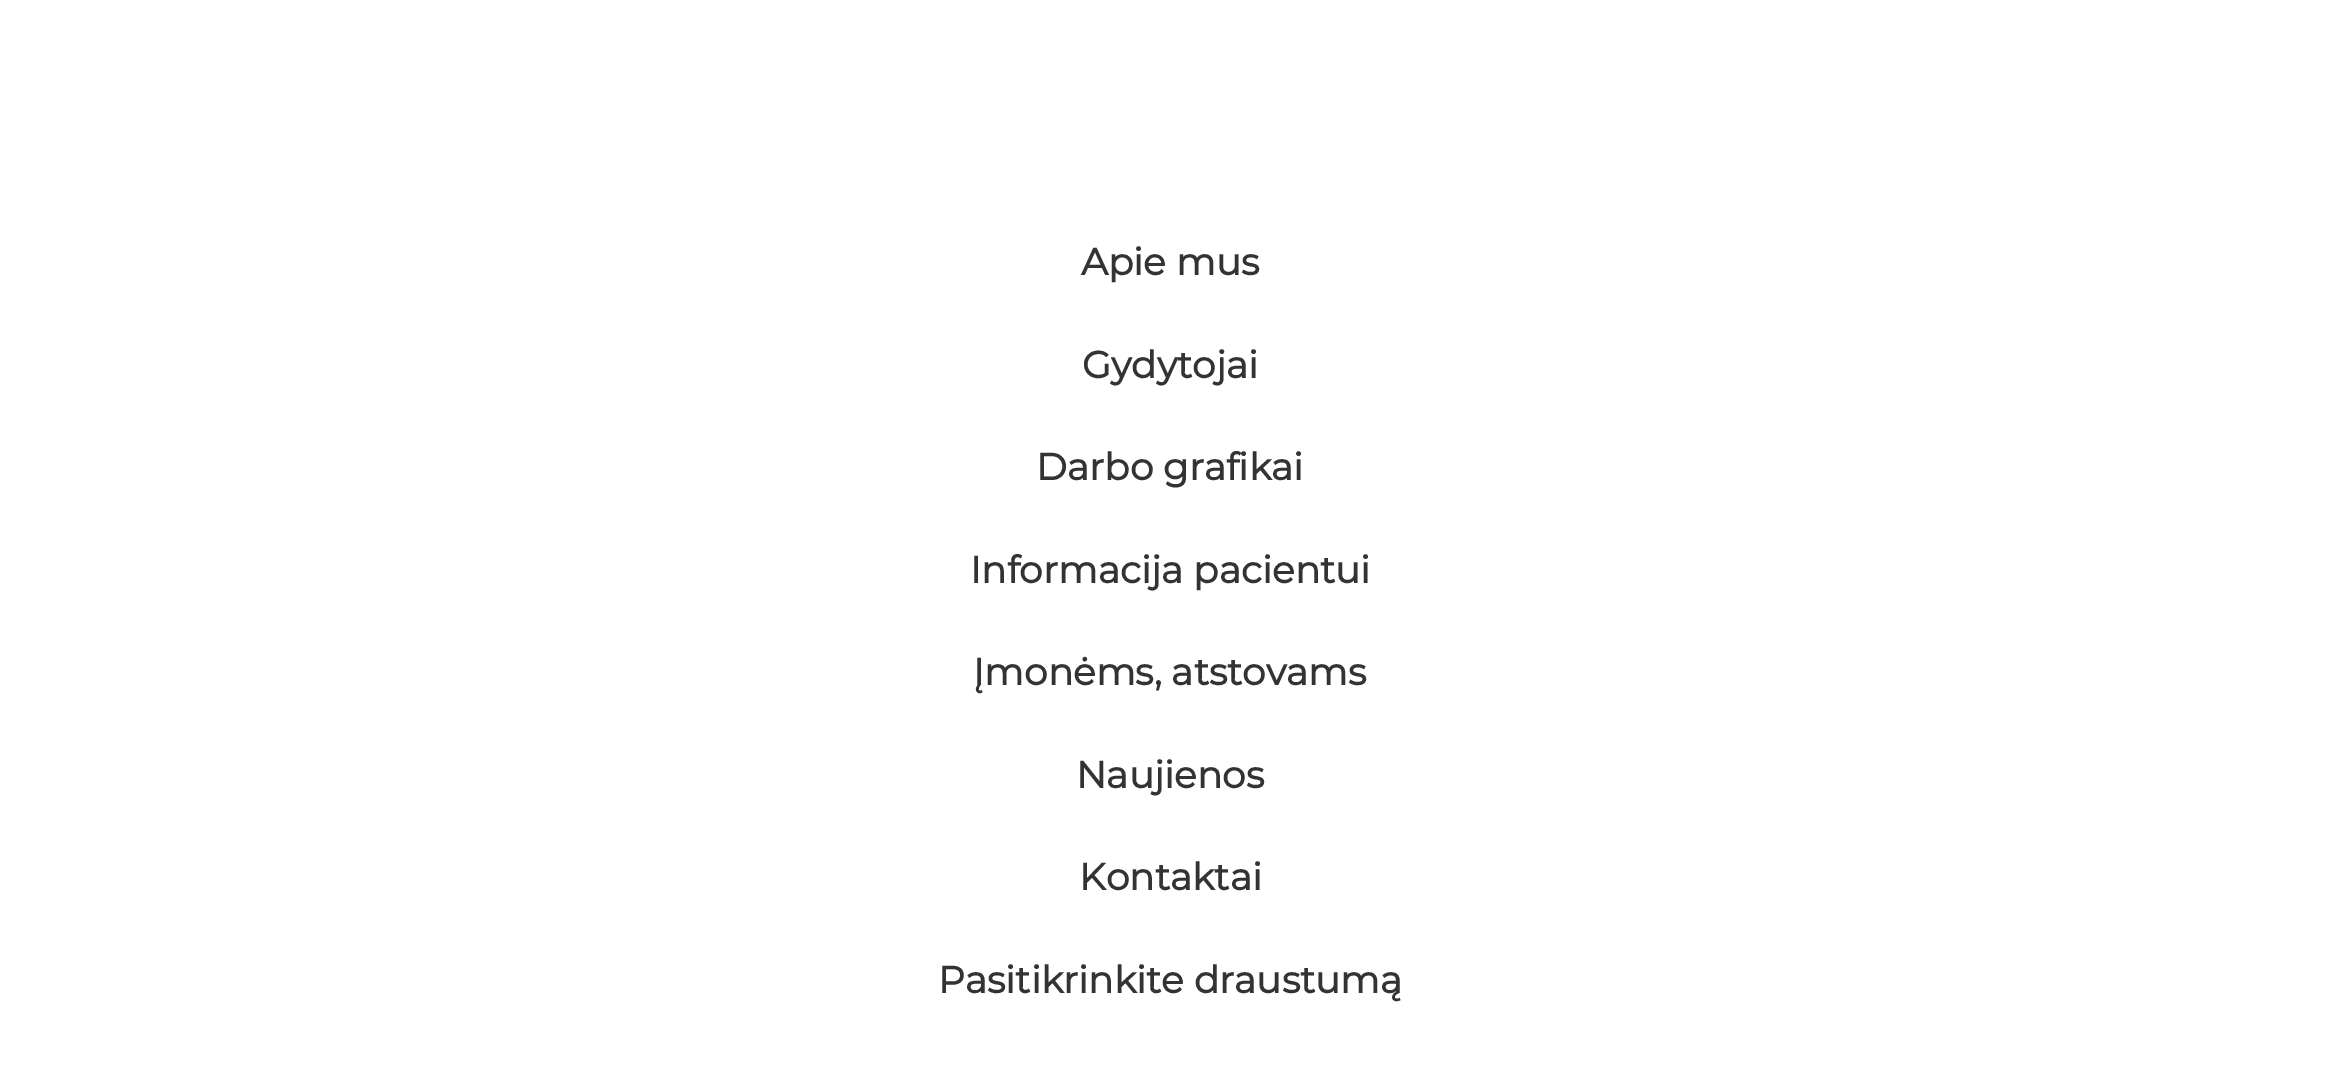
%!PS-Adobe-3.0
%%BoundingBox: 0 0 2338 1082
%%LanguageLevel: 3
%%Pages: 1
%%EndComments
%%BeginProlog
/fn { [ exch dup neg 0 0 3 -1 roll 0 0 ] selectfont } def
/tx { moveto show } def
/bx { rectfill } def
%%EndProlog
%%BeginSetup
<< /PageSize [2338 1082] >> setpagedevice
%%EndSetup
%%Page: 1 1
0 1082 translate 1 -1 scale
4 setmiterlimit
1 setgray
0 0 2338 1082 bx
/Montserrat-Bold 37.5 fn
0.2 setgray
(Apie mus) 1081 275 tx
(Gydytojai) 1082 378 tx
(Darbo grafikai) 1036 480 tx
(Informacija pacientui) 970 583 tx
(Įmonėms, atstovams) 973 685 tx
(Naujienos) 1076 788 tx
(Kontaktai) 1079 890 tx
(Pasitikrinkite draustumą) 938 993 tx
showpage
%%EOF
